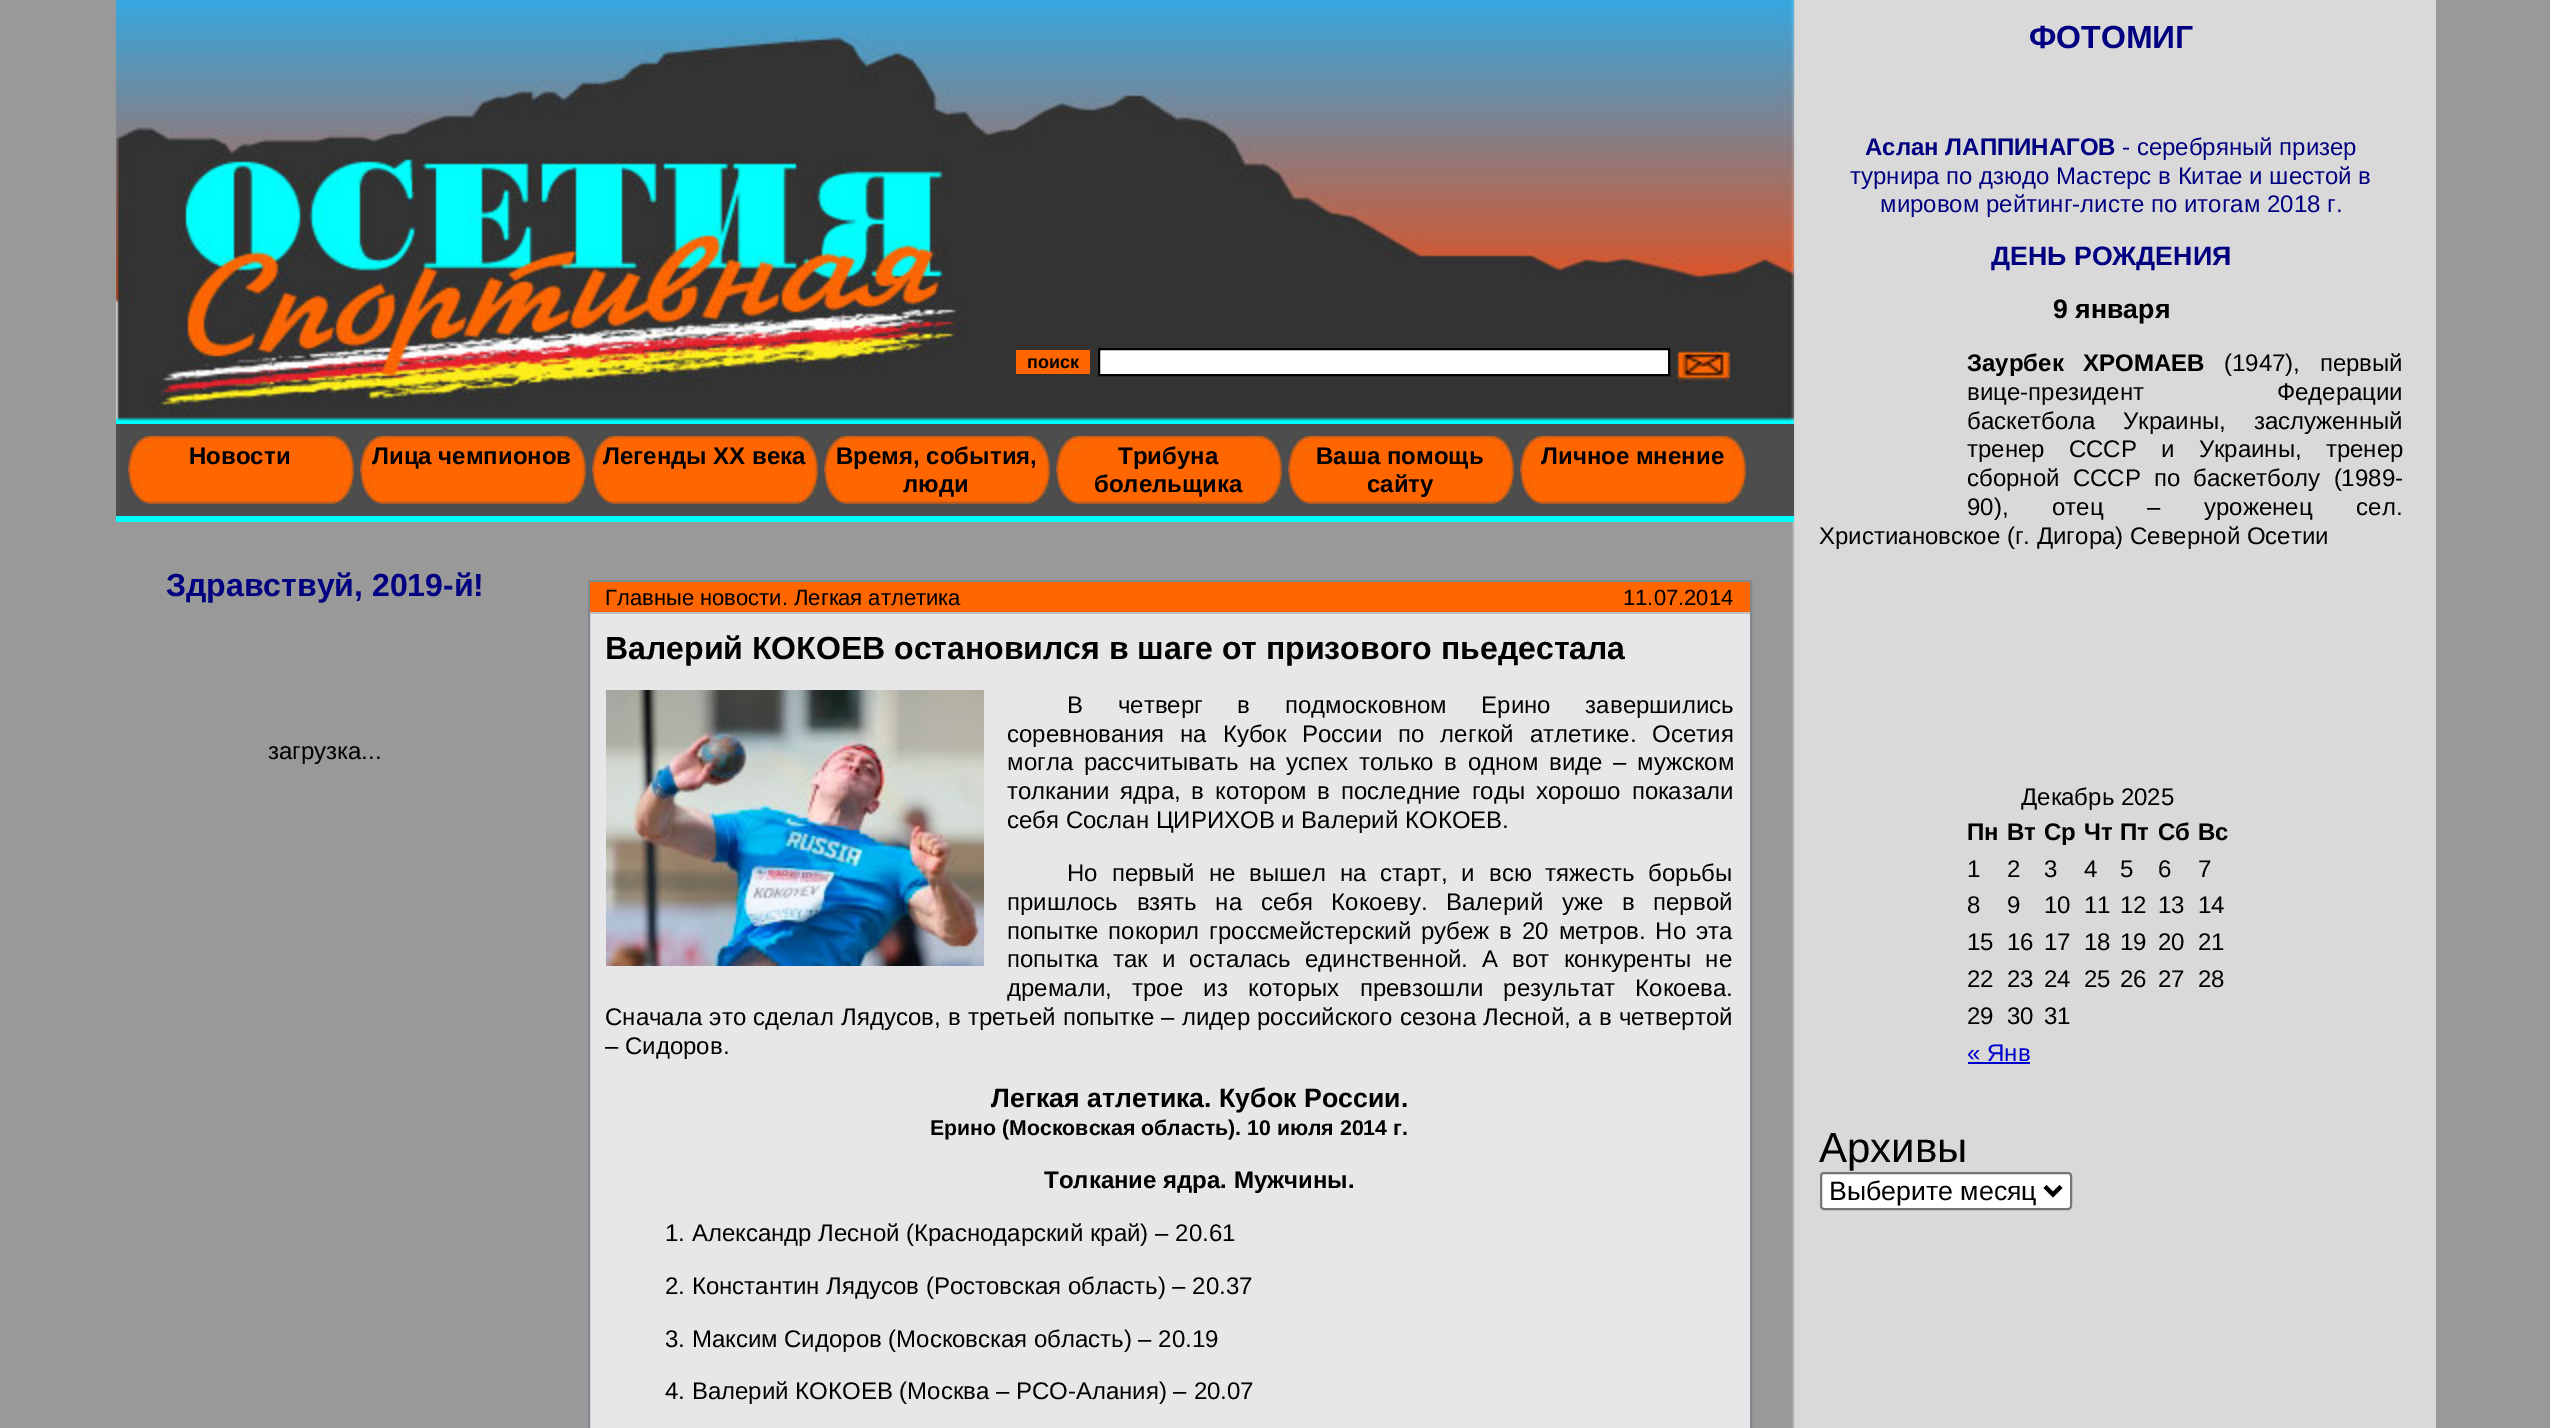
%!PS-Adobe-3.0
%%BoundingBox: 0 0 2550 1428
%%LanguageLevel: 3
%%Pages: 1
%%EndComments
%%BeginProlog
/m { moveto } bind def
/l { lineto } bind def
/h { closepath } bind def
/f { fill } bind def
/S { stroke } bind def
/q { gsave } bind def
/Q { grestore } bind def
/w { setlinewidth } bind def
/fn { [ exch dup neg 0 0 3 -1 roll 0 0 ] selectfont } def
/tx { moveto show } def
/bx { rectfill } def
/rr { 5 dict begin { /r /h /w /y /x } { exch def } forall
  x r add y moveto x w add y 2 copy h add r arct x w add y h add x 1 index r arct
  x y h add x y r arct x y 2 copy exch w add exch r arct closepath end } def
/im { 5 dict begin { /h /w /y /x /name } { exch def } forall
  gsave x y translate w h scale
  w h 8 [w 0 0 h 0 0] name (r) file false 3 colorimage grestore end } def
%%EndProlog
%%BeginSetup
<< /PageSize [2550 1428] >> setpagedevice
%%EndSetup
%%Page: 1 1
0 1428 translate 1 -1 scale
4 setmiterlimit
0.6 setgray
0 0 2550 1428 bx
(image0.raw) 1792 0 644 1428 im
(image1.raw) 116 0 1678 424 im
1 0.4 0 setrgbcolor
1016 350 74 24 bx
/LiberationSans-Bold 18 fn
0 setgray
(поиск) 1027 368 tx
1 setgray
1099 349 m 1669 349 l 1669 375 l 1099 375 l h q f Q
0 setgray
2 w
S
(image2.raw) 1676 350 54 32 im
0.302 setgray
116 424 1678 92 bx
0 1 1 setrgbcolor
116 516 1678 6 bx
(image3.raw) 128 436 226 68 im
/LiberationSans-Bold 24 fn
0 setgray
(Новости) 189 464 tx
(image3.raw) 360 436 226 68 im
(Лица чемпионов) 372 464 tx
(image3.raw) 592 436 226 68 im
(Легенды ХХ века) 603 464 tx
(image3.raw) 824 436 226 68 im
(Время, события,) 836 464 tx
(люди) 903 492 tx
(image3.raw) 1056 436 226 68 im
(Трибуна) 1118 464 tx
(болельщика) 1094 492 tx
(image3.raw) 1288 436 226 68 im
(Ваша помощь) 1316 464 tx
(сайту) 1367 492 tx
(image3.raw) 1520 436 226 68 im
(Личное мнение) 1541 464 tx
/LiberationSans-Bold 32 fn
0 0 0.502 setrgbcolor
(Здравствуй, 2019-й!) 166 596 tx
/LiberationSans-Regular 24 fn
0 setgray
(загрузка...) 268 759 tx
0.906 0.906 0.914 setrgbcolor
590 614 1160 814 bx
0.506 0.533 0.565 setrgbcolor
589 581 1162 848 rectstroke
1 0.4 0 setrgbcolor
590 582 1160 30 bx
0.749 setgray
590 612 1160 2 bx
/LiberationSans-Regular 22 fn
0 setgray
(Главные новости. Легкая атлетика) 605 605 tx
(11.07.2014) 1623 605 tx
/LiberationSans-Bold 32 fn
(Валерий КОКОЕВ остановился в шаге от призового пьедестала) 605 659 tx
(image4.raw) 606 690 378 276 im
/LiberationSans-Regular 24 fn
1067 713 m 28 0 32 (В четверг в подмосковном Ерино завершились) widthshow
1007 742 m 9.25 0 32 (соревнования на Кубок России по легкой атлетике. Осетия) widthshow
1007 770 m 4 0 32 (могла рассчитывать на успех только в одном виде – мужском) widthshow
1007 799 m 4.25 0 32 (толкании ядра, в котором в последние годы хорошо показали) widthshow
(себя Сослан ЦИРИХОВ и Валерий КОКОЕВ.) 1007 828 tx
1067 881 m 7.25 0 32 (Но первый не вышел на старт, и всю тяжесть борьбы) widthshow
1007 910 m 12 0 32 (пришлось взять на себя Кокоеву. Валерий уже в первой) widthshow
1007 939 m 3.25 0 32 (попытке покорил гроссмейстерский рубеж в 20 метров. Но эта) widthshow
1007 967 m 7.5 0 32 (попытка так и осталась единственной. А вот конкуренты не) widthshow
1007 996 m 13.75 0 32 (дремали, трое из которых превзошли результат Кокоева.) widthshow
605 1025 m 0.5 0 32 (Сначала это сделал Лядусов, в третьей попытке – лидер российского сезона Лесной, а в четвертой) widthshow
(– Сидоров.) 605 1054 tx
/LiberationSans-Bold 26.7 fn
(Легкая атлетика. Кубок России.) 991 1107 tx
/LiberationSans-Bold 21.3 fn
(Ерино \(Московская область\). 10 июля 2014 г.) 930 1135 tx
/LiberationSans-Bold 24 fn
(Толкание ядра. Мужчины.) 1044 1188 tx
/LiberationSans-Regular 24 fn
(1. Александр Лесной \(Краснодарский край\) – 20.61) 665 1241 tx
(2. Константин Лядусов \(Ростовская область\) – 20.37) 665 1294 tx
(3. Максим Сидоров \(Московская область\) – 20.19) 665 1347 tx
(4. Валерий КОКОЕВ \(Москва – РСО-Алания\) – 20.07) 665 1399 tx
/LiberationSans-Bold 32 fn
0 0 0.502 setrgbcolor
(ФОТОМИГ) 2029 48 tx
/LiberationSans-Bold 24 fn
(Аслан ЛАППИНАГОВ) 1865 155 tx
/LiberationSans-Regular 24 fn
(- серебряный призер) 2122 155 tx
(турнира по дзюдо Мастерс в Китае и шестой в) 1850 184 tx
(мировом рейтинг-листе по итогам 2018 г.) 1880 212 tx
/LiberationSans-Bold 26.7 fn
(ДЕНЬ РОЖДЕНИЯ) 1991 265 tx
0 setgray
(9 января) 2053 318 tx
/LiberationSans-Bold 24 fn
1967 371 m 13 0 32 (Заурбек ХРОМАЕВ) widthshow
/LiberationSans-Regular 24 fn
2224 371 m 13 0 32 (\(1947\), первый) widthshow
1967 400 m 126 0 32 (вице-президент Федерации) widthshow
1967 429 m 21 0 32 (баскетбола Украины, заслуженный) widthshow
1967 457 m 17.5 0 32 (тренер СССР и Украины, тренер) widthshow
1967 486 m 6.5 0 32 (сборной СССР по баскетболу \(1989-) widthshow
1967 515 m 37 0 32 (90\), отец – уроженец сел.) widthshow
(Христиановское \(г. Дигора\) Северной Осетии) 1819 544 tx
(Декабрь 2025) 2021 805 tx
/LiberationSans-Bold 24 fn
(Пн) 1967 840 tx
(Вт) 2007 840 tx
(Ср) 2044 840 tx
(Чт) 2084 840 tx
(Пт) 2120 840 tx
(Сб) 2158 840 tx
(Вс) 2198 840 tx
/LiberationSans-Regular 24 fn
(1) 1967 877 tx
(2) 2007 877 tx
(3) 2044 877 tx
(4) 2084 877 tx
(5) 2120 877 tx
(6) 2158 877 tx
(7) 2198 877 tx
(8) 1967 913 tx
(9) 2007 913 tx
(10) 2044 913 tx
(11) 2084 913 tx
(12) 2120 913 tx
(13) 2158 913 tx
(14) 2198 913 tx
(15) 1967 950 tx
(16) 2007 950 tx
(17) 2044 950 tx
(18) 2084 950 tx
(19) 2120 950 tx
(20) 2158 950 tx
(21) 2198 950 tx
(22) 1967 987 tx
(23) 2007 987 tx
(24) 2044 987 tx
(25) 2084 987 tx
(26) 2120 987 tx
(27) 2158 987 tx
(28) 2198 987 tx
(29) 1967 1024 tx
(30) 2007 1024 tx
(31) 2044 1024 tx
0 0 0.8 setrgbcolor
(« Янв) 1967 1061 tx
1968 1062 62 2 bx
/LiberationSans-Regular 42 fn
0 setgray
(Архивы) 1819 1162 tx
1 setgray
1821 1173 250 36 3 rr q f Q
0.463 setgray
S
0 setgray
4 w
2045 1186.5 m 2053 1194.5 l 2061 1186.5 l S
/LiberationSans-Regular 26.7 fn
(Выберите месяц) 1829 1200 tx
showpage
%%EOF
